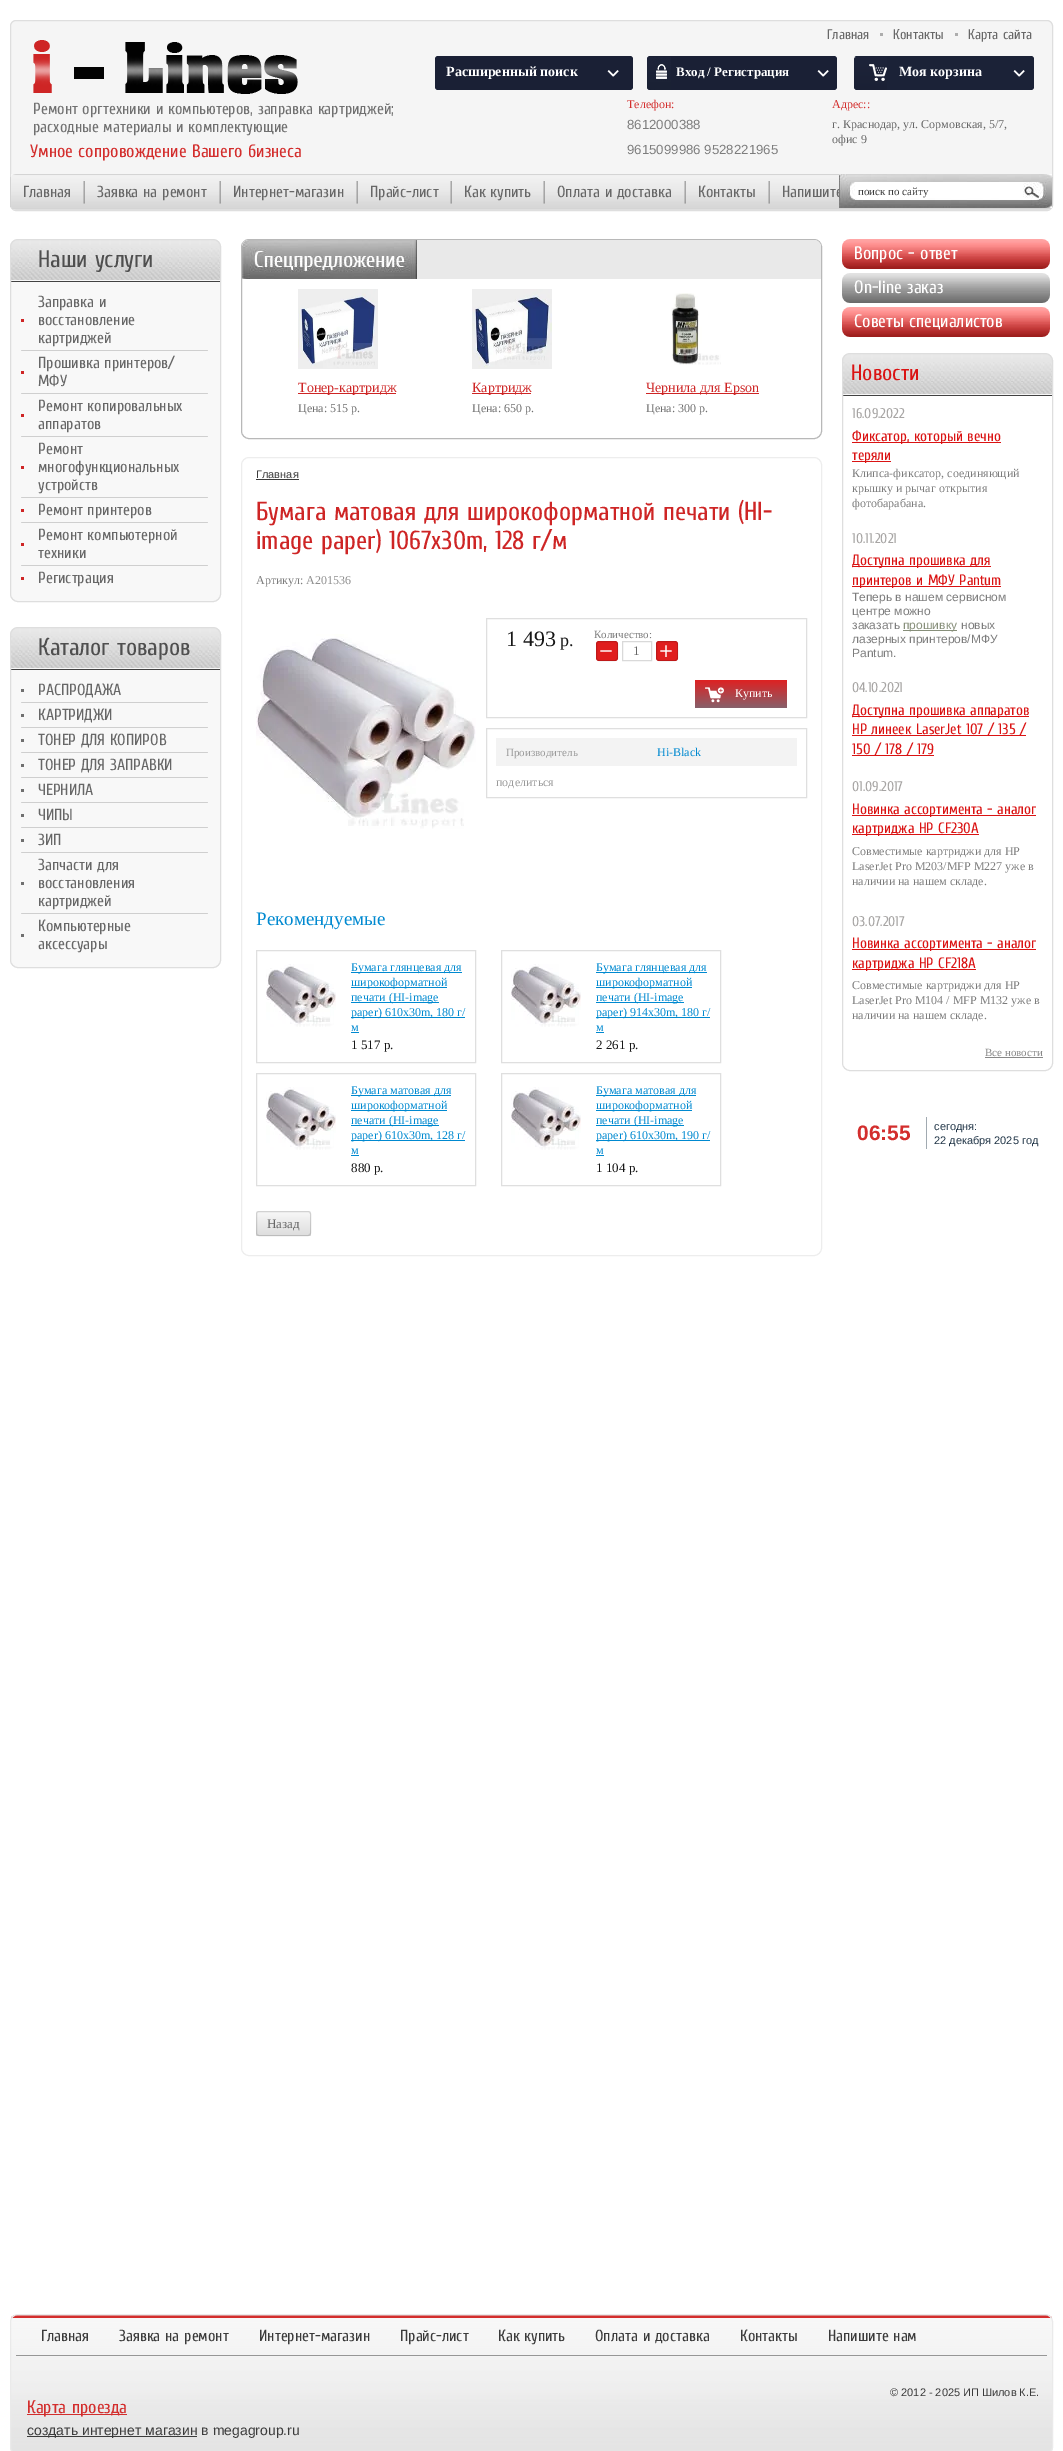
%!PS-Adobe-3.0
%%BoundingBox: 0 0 1063 2451
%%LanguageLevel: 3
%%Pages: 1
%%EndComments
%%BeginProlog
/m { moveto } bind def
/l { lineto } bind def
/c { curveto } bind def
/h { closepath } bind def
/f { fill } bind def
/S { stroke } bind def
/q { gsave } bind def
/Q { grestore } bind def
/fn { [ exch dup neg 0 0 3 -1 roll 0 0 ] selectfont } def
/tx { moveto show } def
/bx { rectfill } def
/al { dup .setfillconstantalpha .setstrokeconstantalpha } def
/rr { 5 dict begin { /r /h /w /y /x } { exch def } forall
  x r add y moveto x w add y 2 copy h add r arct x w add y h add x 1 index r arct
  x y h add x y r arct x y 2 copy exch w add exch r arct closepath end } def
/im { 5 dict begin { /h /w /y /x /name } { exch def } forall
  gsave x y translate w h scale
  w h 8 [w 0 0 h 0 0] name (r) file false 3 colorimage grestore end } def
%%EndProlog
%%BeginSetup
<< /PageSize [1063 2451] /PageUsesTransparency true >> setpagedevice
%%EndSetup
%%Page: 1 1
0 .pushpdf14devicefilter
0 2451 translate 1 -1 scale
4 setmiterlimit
1 setgray
0 0 1063 2451 bx
0.961 setgray
10.5 20.5 1042 190 5.5 rr q f Q
0.871 setgray
S
/Cuprum-Regular 14 fn
0.404 setgray
(Главная) 827 39 tx
0.678 setgray
880 33 3 3 bx
0.404 setgray
(Контакты) 893 39 tx
0.678 setgray
955 33 3 3 bx
0.404 setgray
(Карта сайта) 968 39 tx
0.102 0.125 0.208 setrgbcolor
435 56 198 34 3 rr f
/LiberationSerif-Bold 14 fn
1 setgray
(Расширенный поиск) 446 76 tx
(image0.raw) 607 70 12 7 im
647 56 190 34 2 rr f
0.102 0.125 0.208 setrgbcolor
647 56 190 34 3 rr f
(image1.raw) 647 57 24 33 im
/LiberationSerif-Bold 13 fn
1 setgray
(Вход / Регистрация) 676 76 tx
(image0.raw) 817 70 12 7 im
0.106 0.133 0.216 setrgbcolor
854 56 180 34 3 rr f
(image2.raw) 854 57 33 33 im
/LiberationSerif-Bold 14 fn
1 setgray
(Моя корзина) 899 76 tx
(image3.raw) 1013 70 12 7 im
(image4.raw) 33 40 265 54 im
/Cuprum-Regular 16 fn
0.439 setgray
(Ремонт оргтехники и компьютеров, заправка картриджей;) 33 114 tx
(расходные материалы и комплектующие) 33 132 tx
/LiberationSerif-Regular 12 fn
0.827 0.18 0.176 setrgbcolor
(Телефон:) 627 108 tx
/LiberationSans-Regular 13.25 fn
0.49 setgray
(8612000388) 627 129 tx
(9615099986 9528221965) 627 154 tx
/LiberationSerif-Regular 12 fn
0.827 0.18 0.176 setrgbcolor
(Адрес::) 832 108 tx
0.404 setgray
(г. Краснодар, ул. Сормовская, 5/7,) 832 128 tx
(офис 9) 832 143 tx
/Cuprum-Regular 18 fn
0.827 0.18 0.176 setrgbcolor
(Умное сопровождение Вашего бизнеса) 30 157 tx
(image5.raw) 11 174 1041 36 im
0.827 setgray
1052 177 1 30 bx
10 177 1 30 bx
/Cuprum-Regular 16 fn
0.404 setgray
(Главная) 23 197 tx
(image6.raw) 83 181 2 23 im
(Заявка на ремонт) 97 197 tx
(image6.raw) 219 181 2 23 im
(Интернет-магазин) 233 197 tx
(image6.raw) 356 181 2 23 im
(Прайс-лист) 370 197 tx
(image6.raw) 450 181 2 23 im
(Как купить) 464 197 tx
(image6.raw) 543 181 2 23 im
(Оплата и доставка) 557 197 tx
(image6.raw) 684 181 2 23 im
(Контакты) 698 197 tx
(image6.raw) 768 181 2 23 im
(Напишите) 782 197 tx
(image7.raw) 839 174 213 34 im
/LiberationSerif-Regular 11 fn
0.231 setgray
(поиск по сайту) 858 195 tx
0.973 setgray
10 239 211 363 8 rr f
(image8.raw) 10 240 211 42 im
0.871 setgray
10.5 239.5 210 362 7.5 rr S
/Cuprum-Regular 24 fn
0.31 setgray
(Наши услуги) 38 267 tx
0.808 0.145 0.145 setrgbcolor
21 319 3 3 bx
/Cuprum-Regular 16 fn
0.404 setgray
(Заправка и) 38 307 tx
(восстановление) 38 325 tx
(картриджей) 38 343 tx
(image9.raw) 21 350 187 1 im
0.808 0.145 0.145 setrgbcolor
21 371 3 3 bx
0.404 setgray
(Прошивка принтеров/) 38 368 tx
(МФУ) 38 386 tx
(image9.raw) 21 393 187 1 im
0.808 0.145 0.145 setrgbcolor
21 414 3 3 bx
0.404 setgray
(Ремонт копировальных) 38 411 tx
(аппаратов) 38 429 tx
(image9.raw) 21 436 187 1 im
0.808 0.145 0.145 setrgbcolor
21 466 3 3 bx
0.404 setgray
(Ремонт) 38 454 tx
(многофункциональных) 38 472 tx
(устройств) 38 490 tx
(image9.raw) 21 497 187 1 im
0.808 0.145 0.145 setrgbcolor
21 509 3 3 bx
0.404 setgray
(Ремонт принтеров) 38 515 tx
(image9.raw) 21 522 187 1 im
0.808 0.145 0.145 setrgbcolor
21 543 3 3 bx
0.404 setgray
(Ремонт компьютерной) 38 540 tx
(техники) 38 558 tx
(image9.raw) 21 565 187 1 im
0.808 0.145 0.145 setrgbcolor
21 577 3 3 bx
0.404 setgray
(Регистрация) 38 583 tx
0.973 setgray
10 627 211 341 8 rr f
(image8.raw) 10 628 211 42 im
0.871 setgray
10.5 627.5 210 340 7.5 rr S
/Cuprum-Regular 24 fn
0.31 setgray
(Каталог товаров) 38 655 tx
0.439 setgray
21 689 3 3 bx
/Cuprum-Regular 16 fn
0.404 setgray
(РАСПРОДАЖА) 38 695 tx
(image9.raw) 21 702 187 1 im
0.439 setgray
21 714 3 3 bx
0.404 setgray
(КАРТРИДЖИ) 38 720 tx
(image9.raw) 21 727 187 1 im
0.439 setgray
21 739 3 3 bx
0.404 setgray
(ТОНЕР ДЛЯ КОПИРОВ) 38 745 tx
(image9.raw) 21 752 187 1 im
0.439 setgray
21 764 3 3 bx
0.404 setgray
(ТОНЕР ДЛЯ ЗАПРАВКИ) 38 770 tx
(image9.raw) 21 777 187 1 im
0.439 setgray
21 789 3 3 bx
0.404 setgray
(ЧЕРНИЛА) 38 795 tx
(image9.raw) 21 802 187 1 im
0.439 setgray
21 814 3 3 bx
0.404 setgray
(ЧИПЫ) 38 820 tx
(image9.raw) 21 827 187 1 im
0.439 setgray
21 839 3 3 bx
0.404 setgray
(ЗИП) 38 845 tx
(image9.raw) 21 852 187 1 im
0.439 setgray
21 882 3 3 bx
0.404 setgray
(Запчасти для) 38 870 tx
(восстановления) 38 888 tx
(картриджей) 38 906 tx
(image9.raw) 21 913 187 1 im
0.439 setgray
21 934 3 3 bx
0.404 setgray
(Компьютерные) 38 931 tx
(аксессуары) 38 949 tx
0.722 setgray
241.5 239.5 580 199 7.5 rr S
0.914 setgray
249 240 m 814 240 l 818 240 821 243 821 247 c 821 279 l 242 279 l 242 247 l 242 243 245 240 249 240 c h f
(image10.raw) 242 240 175 39 im
(image11.raw) 298 289 80 80 im
0.808 0.145 0.145 setrgbcolor
298 393 98 1 bx
/LiberationSerif-Regular 14 fn
(Тонер-картридж) 298 392 tx
/LiberationSerif-Regular 12 fn
0.439 setgray
(Цена: 515 р.) 298 412 tx
(image12.raw) 472 289 80 80 im
0.808 0.145 0.145 setrgbcolor
472 393 59 1 bx
/LiberationSerif-Regular 14 fn
(Картридж) 472 392 tx
/LiberationSerif-Regular 12 fn
0.439 setgray
(Цена: 650 р.) 472 412 tx
(image13.raw) 671 293 50 72 im
0.808 0.145 0.145 setrgbcolor
646 393 113 1 bx
/LiberationSerif-Regular 14 fn
(Чернила для Epson) 646 392 tx
/LiberationSerif-Regular 12 fn
0.439 setgray
(Цена: 300 р.) 646 412 tx
0.929 setgray
241.5 457.5 580 798 7.5 rr S
/LiberationSans-Regular 11 fn
0.231 setgray
(Главная) 256 478 tx
256 479 43 1 bx
/Cuprum-Regular 26 fn
0.808 0.145 0.145 setrgbcolor
(Бумага матовая для широкоформатной печати \(HI-) 256 520 tx
(image paper\) 1067x30m, 128 г/м) 256 549 tx
/LiberationSerif-Regular 12 fn
0.49 setgray
(Артикул:) 256 584 tx
0.557 setgray
(A201536) 306 584 tx
(image14.raw) 256 634 220 195 im
0.875 setgray
486.5 618.5 320 99 rectstroke
/LiberationSerif-Regular 22 fn
0.09 setgray
(1 493) 506 646 tx
/LiberationSerif-Regular 18 fn
(р.) 560 646 tx
/LiberationSerif-Regular 11 fn
0.49 setgray
(Количество:) 594 638 tx
0.878 0.114 0.114 setrgbcolor
596 641 22 20 3 rr f
0.15 al
0 setgray
596.5 641.5 21 19 2.5 rr S
/LiberationSans-Regular 24 fn
1 al
1 setgray
(−) 599 659 tx
0.851 setgray
622.5 641.5 29 19 rectstroke
/LiberationSerif-Regular 13 fn
0.404 setgray
(1) 633 655 tx
0.878 0.114 0.114 setrgbcolor
656 641 22 20 3 rr f
0.15 al
0 setgray
656.5 641.5 21 19 2.5 rr S
/LiberationSans-Regular 24 fn
1 al
1 setgray
(+) 659 659 tx
q 695 680 92 28 3 rr clip newpath
<< /ShadingType 2 /ColorSpace /DeviceRGB /Coords [741 680 741 708] /Extend [true true] /Function << /FunctionType 2 /Domain [0 1] /C0 [0.871 0.129 0.133] /C1 [0.529 0.376 0.416] /N 1 >> >> shfill Q
(image15.raw) 705 687 19 16 im
/LiberationSerif-Regular 12 fn
(Купить) 735 697 tx
0.875 setgray
486.5 728.5 320 69 rectstroke
0.953 setgray
496 738 301 28 bx
/LiberationSerif-Regular 11 fn
0.604 setgray
(Производитель) 506 756 tx
/LiberationSerif-Regular 12 fn
0 0.537 0.816 setrgbcolor
(Hi-Black) 657 756 tx
0.604 setgray
(поделиться) 496 786 tx
/LiberationSerif-Regular 19 fn
0 0.537 0.816 setrgbcolor
(Рекомендуемые) 256 925 tx
0.875 setgray
256.5 950.5 219 112 rectstroke
(image16.raw) 266 964 70 63 im
0 0.537 0.816 setrgbcolor
351 972 111 1 bx
/LiberationSerif-Regular 12 fn
(Бумага глянцевая для) 351 971 tx
351 987 96 1 bx
(широкоформатной) 351 986 tx
351 1002 88 1 bx
(печати \(HI-image) 351 1001 tx
351 1017 114 1 bx
(paper\) 610x30m, 180 г/) 351 1016 tx
(м) 351 1031 tx
351 1032 8 1 bx
/LiberationSerif-Regular 13 fn
0.09 setgray
(1 517 р.) 351 1049 tx
0.875 setgray
501.5 950.5 219 112 rectstroke
(image16.raw) 511 964 70 63 im
0 0.537 0.816 setrgbcolor
596 972 111 1 bx
/LiberationSerif-Regular 12 fn
(Бумага глянцевая для) 596 971 tx
596 987 96 1 bx
(широкоформатной) 596 986 tx
596 1002 88 1 bx
(печати \(HI-image) 596 1001 tx
596 1017 114 1 bx
(paper\) 914x30m, 180 г/) 596 1016 tx
(м) 596 1031 tx
596 1032 8 1 bx
/LiberationSerif-Regular 13 fn
0.09 setgray
(2 261 р.) 596 1049 tx
0.875 setgray
256.5 1073.5 219 112 rectstroke
(image16.raw) 266 1087 70 63 im
0 0.537 0.816 setrgbcolor
351 1095 100 1 bx
/LiberationSerif-Regular 12 fn
(Бумага матовая для) 351 1094 tx
351 1110 96 1 bx
(широкоформатной) 351 1109 tx
351 1125 88 1 bx
(печати \(HI-image) 351 1124 tx
351 1140 114 1 bx
(paper\) 610x30m, 128 г/) 351 1139 tx
(м) 351 1154 tx
351 1155 8 1 bx
/LiberationSerif-Regular 13 fn
0.09 setgray
(880 р.) 351 1172 tx
0.875 setgray
501.5 1073.5 219 112 rectstroke
(image16.raw) 511 1087 70 63 im
0 0.537 0.816 setrgbcolor
596 1095 100 1 bx
/LiberationSerif-Regular 12 fn
(Бумага матовая для) 596 1094 tx
596 1110 96 1 bx
(широкоформатной) 596 1109 tx
596 1125 88 1 bx
(печати \(HI-image) 596 1124 tx
596 1140 114 1 bx
(paper\) 610x30m, 190 г/) 596 1139 tx
(м) 596 1154 tx
596 1155 8 1 bx
/LiberationSerif-Regular 13 fn
0.09 setgray
(1 104 р.) 596 1172 tx
q 256 1211 55 25 3 rr clip newpath
<< /ShadingType 2 /ColorSpace /DeviceRGB /Coords [284 1211 284 1236] /Extend [true true] /Function << /FunctionType 2 /Domain [0 1] /C0 [0.973 0.973 0.973] /C1 [0.867 0.867 0.867] /N 1 >> >> shfill Q
0.15 al
0 setgray
256.5 1211.5 54 24 2.5 rr S
1 al
0.404 setgray
(Назад) 267 1228 tx
(image17.raw) 842 239 208 30 im
/Cuprum-Regular 18 fn
1 setgray
(Вопрос - ответ) 854 259 tx
(image18.raw) 842 273 208 30 im
(On-line заказ) 854 293 tx
(image17.raw) 842 307 208 30 im
(Советы специалистов) 854 327 tx
(image19.raw) 842 354 211 42 im
0.871 setgray
842.5 353.5 210 717 7.5 rr S
/Cuprum-Regular 22 fn
0.855 0.075 0.075 setrgbcolor
(Новости) 851 380 tx
/Cuprum-Regular 14 fn
0.655 0.647 0.643 setrgbcolor
(16.09.2022) 852 418 tx
0.855 0.075 0.075 setrgbcolor
852 442 149 1 bx
/Cuprum-Regular 15 fn
(Фиксатор, который вечно) 852 441 tx
852 461 39 1 bx
(теряли) 852 460 tx
/LiberationSerif-Regular 12 fn
0.49 setgray
(Клипса-фиксатор, соединяющий) 852 477 tx
(крышку и рычаг открытия) 852 492 tx
(фотобарабана.) 852 507 tx
/Cuprum-Regular 14 fn
0.655 0.647 0.643 setrgbcolor
(10.11.2021) 852 543 tx
0.855 0.075 0.075 setrgbcolor
852 566 139 1 bx
/Cuprum-Regular 15 fn
(Доступна прошивка для) 852 565 tx
852 586 149 1 bx
(принтеров и МФУ Pantum) 852 585 tx
/LiberationSans-Regular 12 fn
0.49 setgray
(Теперь в нашем сервисном) 852 601 tx
(центре можно) 852 615 tx
(заказать) 852 629 tx
0.529 0.561 0.478 setrgbcolor
903 630 54 1 bx
(прошивку) 903 629 tx
0.49 setgray
(новых) 961 629 tx
(лазерных принтеров/МФУ) 852 643 tx
(Pantum.) 852 657 tx
/Cuprum-Regular 14 fn
0.655 0.647 0.643 setrgbcolor
(04.10.2021) 852 692 tx
0.855 0.075 0.075 setrgbcolor
852 716 177 1 bx
/Cuprum-Regular 15 fn
(Доступна прошивка аппаратов) 852 715 tx
852 735 174 1 bx
(HP линеек LaserJet 107 / 135 /) 852 734 tx
852 755 82 1 bx
(150 / 178 / 179) 852 754 tx
/Cuprum-Regular 14 fn
0.655 0.647 0.643 setrgbcolor
(01.09.2017) 852 791 tx
0.855 0.075 0.075 setrgbcolor
852 815 184 1 bx
/Cuprum-Regular 15 fn
(Новинка ассортимента - аналог) 852 814 tx
852 834 127 1 bx
(картриджа HP CF230A) 852 833 tx
/LiberationSerif-Regular 12 fn
0.49 setgray
(Совместимые картриджи для HP) 852 855 tx
(LaserJet Pro M203/MFP M227 уже в) 852 870 tx
(наличии на нашем складе.) 852 885 tx
/Cuprum-Regular 14 fn
0.655 0.647 0.643 setrgbcolor
(03.07.2017) 852 926 tx
0.855 0.075 0.075 setrgbcolor
852 949 184 1 bx
/Cuprum-Regular 15 fn
(Новинка ассортимента - аналог) 852 948 tx
852 969 124 1 bx
(картриджа HP CF218A) 852 968 tx
/LiberationSerif-Regular 12 fn
0.49 setgray
(Совместимые картриджи для HP) 852 989 tx
(LaserJet Pro M104 / MFP M132 уже в) 852 1004 tx
(наличии на нашем складе.) 852 1019 tx
/LiberationSerif-Regular 11 fn
0.533 setgray
(Все новости) 985 1056 tx
985 1057 58 1 bx
0.631 0.667 0.694 setrgbcolor
926 1117 1 32 bx
/LiberationSans-Bold 21 fn
0.827 0.18 0.176 setrgbcolor
(06:55) 857 1140 tx
/LiberationSans-Regular 11 fn
0.133 0.212 0.282 setrgbcolor
(сегодня:) 934 1130 tx
(22 декабря 2025 год) 934 1144 tx
(image20.raw) 10 2315 1043 136 im
0.918 setgray
10.5 2314.5 1042 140 7.5 rr S
0.592 setgray
16 2355 1031 1 bx
/Cuprum-Regular 16 fn
0.231 setgray
(Главная) 41 2341 tx
(Заявка на ремонт) 119 2341 tx
(Интернет-магазин) 259 2341 tx
(Прайс-лист) 400 2341 tx
(Как купить) 498 2341 tx
(Оплата и доставка) 595 2341 tx
(Контакты) 740 2341 tx
(Напишите нам) 828 2341 tx
/LiberationSans-Regular 11 fn
(© 2012 - 2025 ИП Шилов К.Е.) 890 2396 tx
0.827 0.18 0.176 setrgbcolor
27 2414 100 1 bx
/Cuprum-Regular 18 fn
(Карта проезда) 27 2413 tx
0.231 setgray
27 2436 170 1 bx
/LiberationSans-Regular 14 fn
(создать интернет магазин в megagroup.ru) 27 2435 tx
.poppdf14devicefilter showpage
%%EOF
